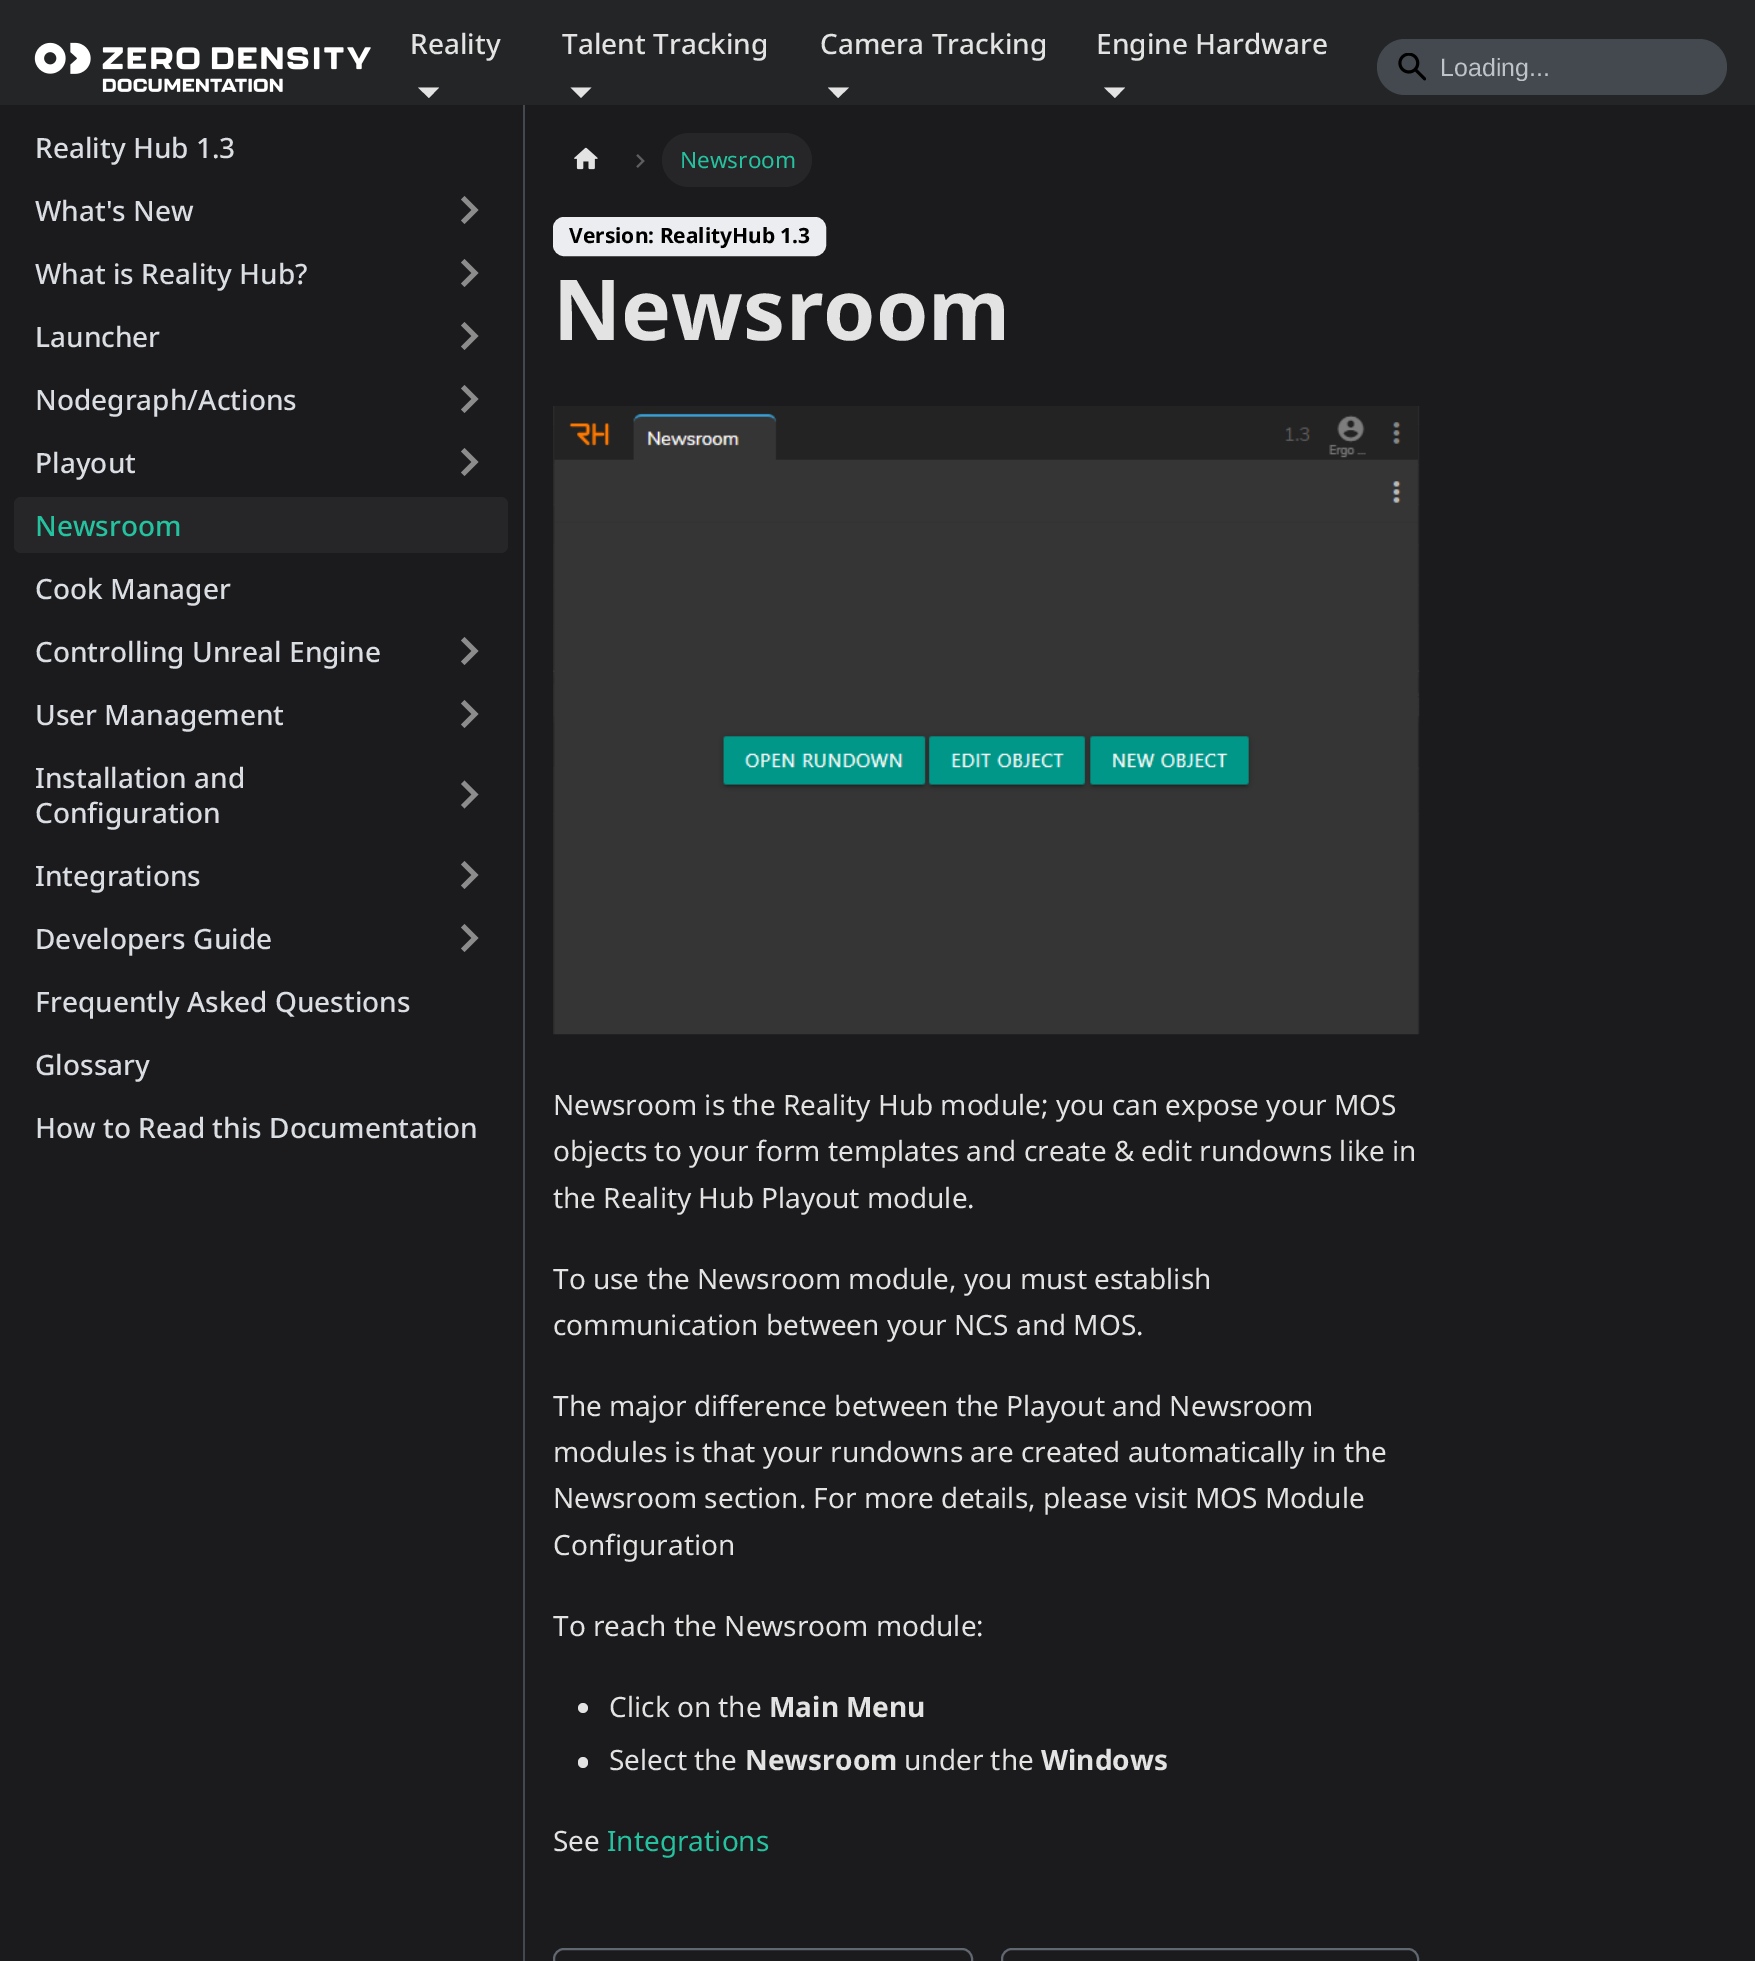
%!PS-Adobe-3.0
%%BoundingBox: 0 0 1755 1961
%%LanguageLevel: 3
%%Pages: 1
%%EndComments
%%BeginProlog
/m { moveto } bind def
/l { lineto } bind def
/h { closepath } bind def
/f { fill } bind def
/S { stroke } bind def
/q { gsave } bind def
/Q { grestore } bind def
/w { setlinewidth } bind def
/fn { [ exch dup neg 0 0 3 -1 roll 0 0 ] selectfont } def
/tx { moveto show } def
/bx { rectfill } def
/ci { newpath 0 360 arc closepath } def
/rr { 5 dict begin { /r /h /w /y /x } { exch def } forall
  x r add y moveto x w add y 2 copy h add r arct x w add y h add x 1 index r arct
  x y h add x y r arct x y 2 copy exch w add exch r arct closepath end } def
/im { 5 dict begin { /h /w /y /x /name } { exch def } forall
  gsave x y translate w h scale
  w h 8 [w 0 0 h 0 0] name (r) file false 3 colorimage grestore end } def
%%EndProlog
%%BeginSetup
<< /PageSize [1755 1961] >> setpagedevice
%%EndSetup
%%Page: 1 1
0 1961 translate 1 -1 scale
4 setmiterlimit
0.106 0.106 0.114 setrgbcolor
0 0 1755 1961 bx
0.141 0.145 0.149 setrgbcolor
0 0 1755 105 bx
(image0.raw) 34 42 337 50 im
/NotoSans-Medium 28 fn
0.89 setgray
(Reality) 410 54 tx
418 87.5 m 439 87.5 l 429 98 l h f
(Talent Tracking) 562 54 tx
570.5 87.5 m 591.5 87.5 l 581 98 l h f
(Camera Tracking) 820 54 tx
828 87.5 m 849 87.5 l 838 98 l h f
(Engine Hardware) 1096 54 tx
1104 87.5 m 1125 87.5 l 1115 98 l h f
0.267 0.286 0.314 setrgbcolor
1377 39 350 56 28 rr f
(image1.raw) 1398 53 28 28 im
q
1440 53 249 28 rectclip
/LiberationSans-Regular 25 fn
0.745 0.765 0.788 setrgbcolor
(Loading...) 1440 76 tx
Q
523 105 2 1856 bx
0.855 0.867 0.882 setrgbcolor
(Reality Hub 1.3) 35 158 tx
(What's New) 35 221 tx
0.549 0.549 0.553 setrgbcolor
461 199.5 m 471.5 210 l 461 220.5 l 464.5 224 l 478.5 210 l 464.5 196 l h f
0.855 0.867 0.882 setrgbcolor
(What is Reality Hub?) 35 284 tx
0.549 0.549 0.553 setrgbcolor
461 262.5 m 471.5 273 l 461 283.5 l 464.5 287 l 478.5 273 l 464.5 259 l h f
0.855 0.867 0.882 setrgbcolor
(Launcher) 35 347 tx
0.549 0.549 0.553 setrgbcolor
461 325.5 m 471.5 336 l 461 346.5 l 464.5 350 l 478.5 336 l 464.5 322 l h f
0.855 0.867 0.882 setrgbcolor
(Nodegraph/Actions) 35 410 tx
0.549 0.549 0.553 setrgbcolor
461 388.5 m 471.5 399 l 461 409.5 l 464.5 413 l 478.5 399 l 464.5 385 l h f
0.855 0.867 0.882 setrgbcolor
(Playout) 35 473 tx
0.549 0.549 0.553 setrgbcolor
461 451.5 m 471.5 462 l 461 472.5 l 464.5 476 l 478.5 462 l 464.5 448 l h f
0.149 0.149 0.157 setrgbcolor
14 497 494 56 7 rr f
0.145 0.761 0.627 setrgbcolor
(Newsroom) 35 536 tx
0.855 0.867 0.882 setrgbcolor
(Cook Manager) 35 599 tx
(Controlling Unreal Engine) 35 662 tx
0.549 0.549 0.553 setrgbcolor
461 640.5 m 471.5 651 l 461 661.5 l 464.5 665 l 478.5 651 l 464.5 637 l h f
0.855 0.867 0.882 setrgbcolor
(User Management) 35 725 tx
0.549 0.549 0.553 setrgbcolor
461 703.5 m 471.5 714 l 461 724.5 l 464.5 728 l 478.5 714 l 464.5 700 l h f
0.855 0.867 0.882 setrgbcolor
(Installation and) 35 788 tx
(Configuration) 35 823 tx
0.549 0.549 0.553 setrgbcolor
461 784 m 471.5 794.5 l 461 805 l 464.5 808.5 l 478.5 794.5 l 464.5 780.5 l h f
0.855 0.867 0.882 setrgbcolor
(Integrations) 35 886 tx
0.549 0.549 0.553 setrgbcolor
461 864.5 m 471.5 875 l 461 885.5 l 464.5 889 l 478.5 875 l 464.5 861 l h f
0.855 0.867 0.882 setrgbcolor
(Developers Guide) 35 949 tx
0.549 0.549 0.553 setrgbcolor
461 927.5 m 471.5 938 l 461 948.5 l 464.5 952 l 478.5 938 l 464.5 924 l h f
0.855 0.867 0.882 setrgbcolor
(Frequently Asked Questions) 35 1012 tx
(Glossary) 35 1075 tx
(How to Read this Documentation) 35 1138 tx
(image2.raw) 574 147 24 23 im
(image3.raw) 636 154 9 14 im
0.149 0.149 0.157 setrgbcolor
662 133 150 54 27 rr f
/NotoSans-Regular 22.5 fn
0.145 0.761 0.627 setrgbcolor
(Newsroom) 680 168 tx
0.922 0.929 0.941 setrgbcolor
554 218 271 37 10 rr q f Q
2 w
S
/NotoSans-Bold 21 fn
0 setgray
(Version: RealityHub 1.3) 569 243 tx
/NotoSans-Bold 84 fn
0.89 setgray
(Newsroom) 553 340 tx
(image4.raw) 553 406 867 629 im
/NotoSans-Regular 28 fn
(Newsroom is the Reality Hub module; you can expose your MOS) 553 1115 tx
(objects to your form templates and create & edit rundowns like in) 553 1161 tx
(the Reality Hub Playout module.) 553 1208 tx
(To use the Newsroom module, you must establish) 553 1289 tx
(communication between your NCS and MOS.) 553 1335 tx
(The major difference between the Playout and Newsroom) 553 1416 tx
(modules is that your rundowns are created automatically in the) 553 1462 tx
(Newsroom section. For more details, please visit MOS Module) 553 1508 tx
(Configuration) 553 1555 tx
(To reach the Newsroom module:) 553 1636 tx
583 1708 5 ci f
(Click on the) 609 1717 tx
/NotoSans-Bold 28 fn
(Main Menu) 769 1717 tx
578 1757 10 11 5 rr f
/NotoSans-Regular 28 fn
(Select the) 609 1770 tx
/NotoSans-Bold 28 fn
(Newsroom) 745 1770 tx
/NotoSans-Regular 28 fn
(under the) 904 1770 tx
/NotoSans-Bold 28 fn
(Windows) 1041 1770 tx
/NotoSans-Regular 28 fn
(See) 553 1851 tx
0.145 0.761 0.627 setrgbcolor
(Integrations) 607 1851 tx
0.376 0.404 0.439 setrgbcolor
554 1949 418 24 10 rr S
1002 1949 416 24 10 rr S
showpage
%%EOF
